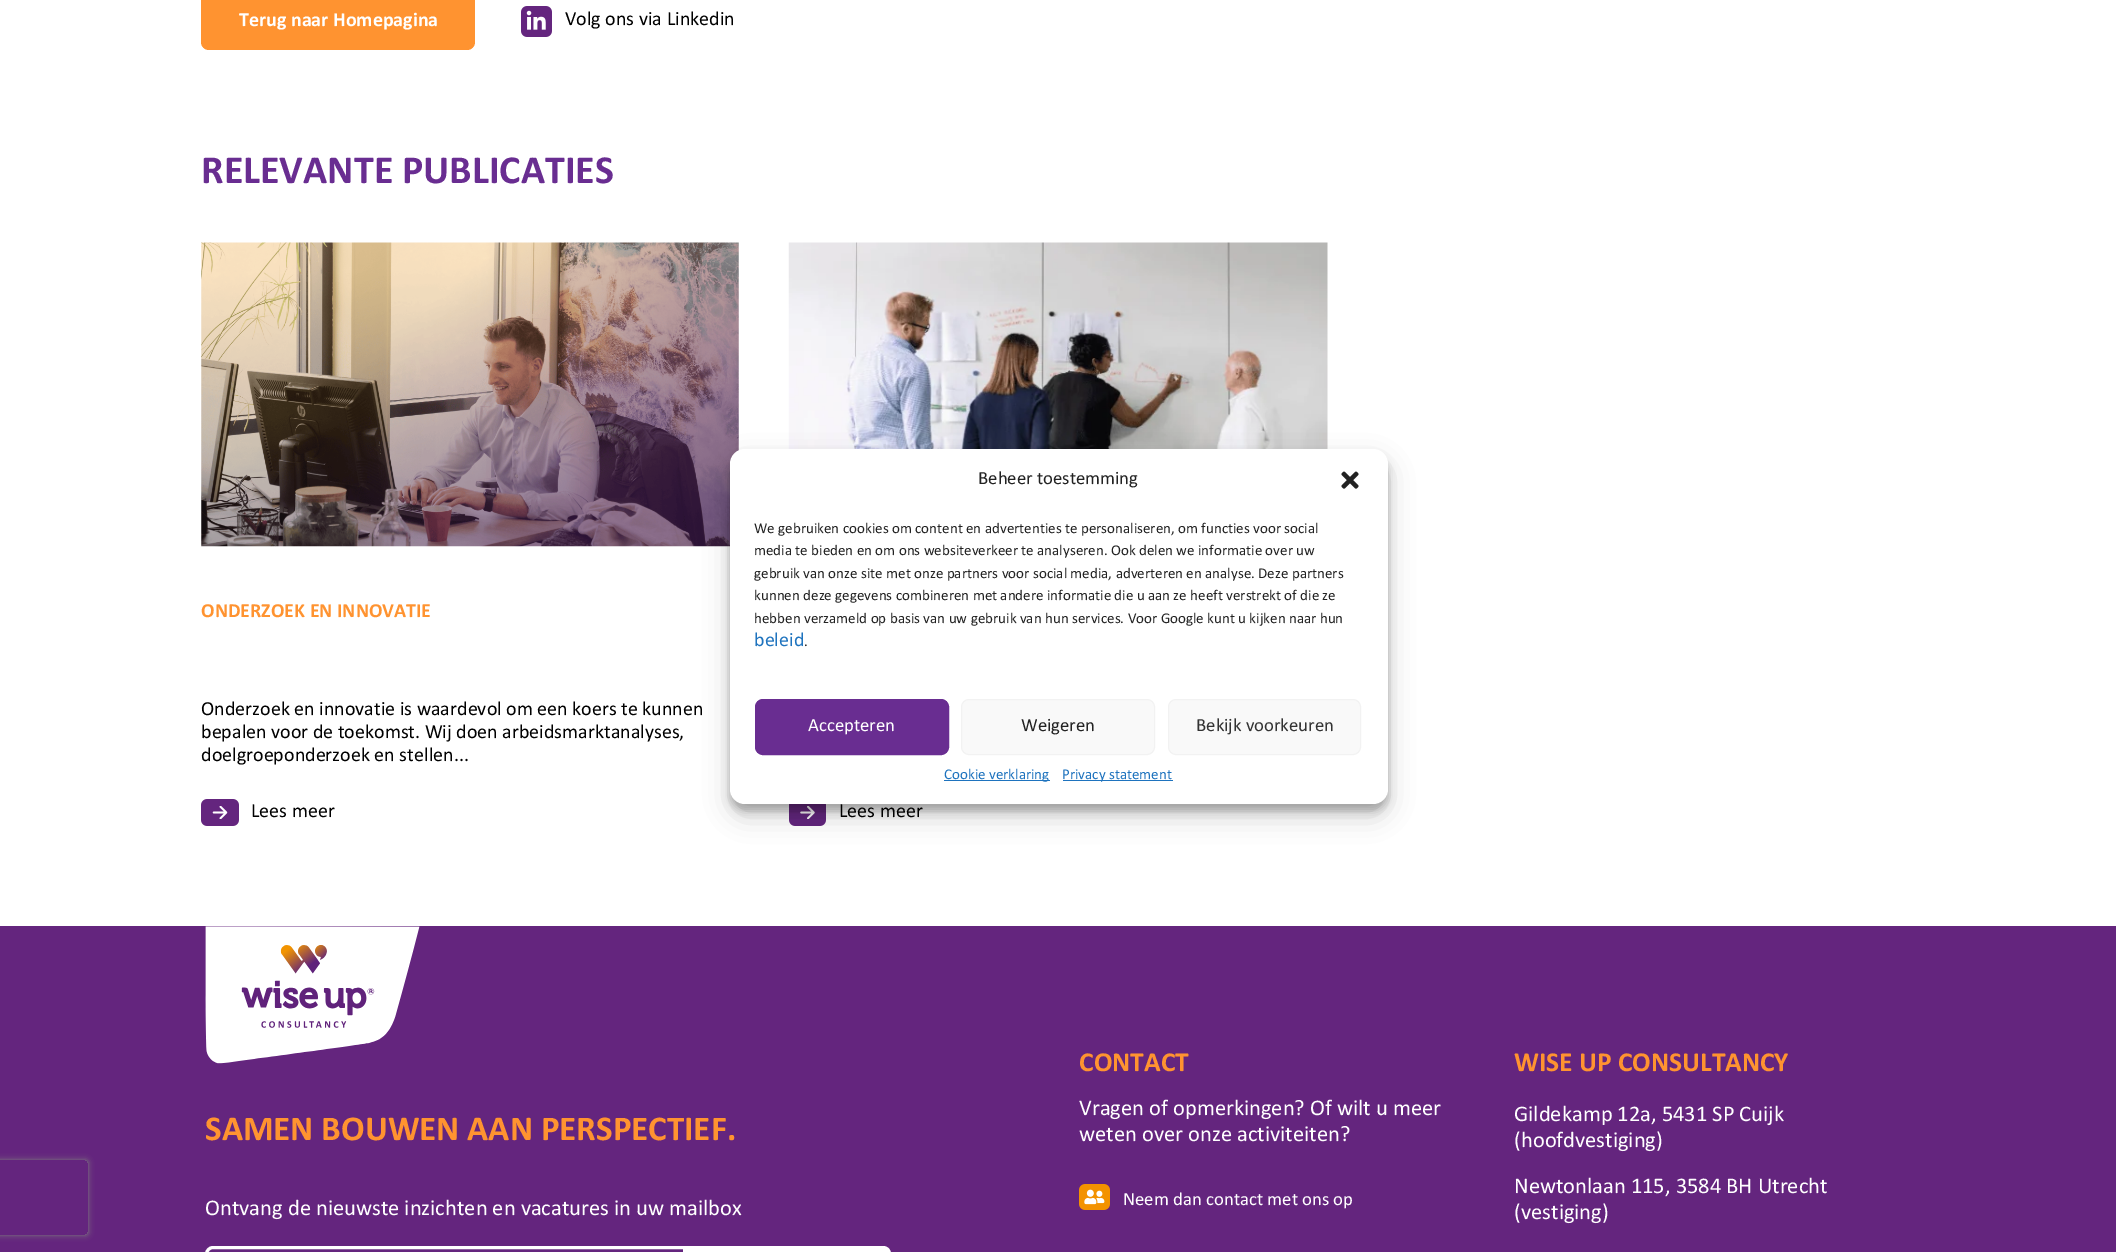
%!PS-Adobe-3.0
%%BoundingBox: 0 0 2116 1252
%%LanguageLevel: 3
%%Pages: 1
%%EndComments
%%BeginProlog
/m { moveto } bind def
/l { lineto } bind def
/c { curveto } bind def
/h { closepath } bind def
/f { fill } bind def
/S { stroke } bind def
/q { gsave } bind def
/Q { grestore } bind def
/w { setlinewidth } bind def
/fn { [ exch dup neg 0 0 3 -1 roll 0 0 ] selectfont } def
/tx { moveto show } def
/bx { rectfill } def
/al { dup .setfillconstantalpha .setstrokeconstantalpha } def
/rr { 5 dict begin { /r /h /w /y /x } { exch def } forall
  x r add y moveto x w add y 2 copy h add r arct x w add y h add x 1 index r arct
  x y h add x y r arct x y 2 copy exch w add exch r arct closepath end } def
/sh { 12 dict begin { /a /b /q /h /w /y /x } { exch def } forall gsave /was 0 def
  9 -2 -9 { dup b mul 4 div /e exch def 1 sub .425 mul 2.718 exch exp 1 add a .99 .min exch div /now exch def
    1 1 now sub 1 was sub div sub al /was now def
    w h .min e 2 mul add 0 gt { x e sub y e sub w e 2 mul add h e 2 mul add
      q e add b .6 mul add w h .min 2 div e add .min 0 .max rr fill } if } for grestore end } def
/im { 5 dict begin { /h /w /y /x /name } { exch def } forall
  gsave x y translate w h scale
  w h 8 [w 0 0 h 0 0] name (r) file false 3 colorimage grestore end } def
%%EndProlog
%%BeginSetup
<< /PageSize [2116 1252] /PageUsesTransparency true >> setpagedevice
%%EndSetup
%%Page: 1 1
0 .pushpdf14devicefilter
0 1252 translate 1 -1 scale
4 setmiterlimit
1 setgray
0 0 2116 1252 bx
1 0.576 0.188 setrgbcolor
201 -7 274 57 8 rr f
/Calibri-Bold 20 fn
1 setgray
(Terug naar Homepagina) 239 26 tx
(image0.raw) 521 6 31 31 im
/Calibri-Regular 20 fn
0 setgray
(Volg ons via Linkedin) 565 25 tx
/Calibri-Bold 40 fn
0.412 0.176 0.569 setrgbcolor
(RELEVANTE PUBLICATIES) 201 183 tx
(image1.raw) 201 242 538 305 im
/Calibri-Bold 20 fn
1 0.576 0.188 setrgbcolor
(ONDERZOEK EN INNOVATIE) 201 617 tx
/Calibri-Regular 20 fn
0 setgray
(Onderzoek en innovatie is waardevol om een koers te kunnen) 201 715 tx
(bepalen voor de toekomst. Wij doen arbeidsmarktanalyses,) 201 738 tx
(doelgroeponderzoek en stellen...) 201 761 tx
(image2.raw) 201 799 38 27 im
(Lees meer) 251 817 tx
(image3.raw) 788 242 540 207 im
(image4.raw) 789 804 37 22 im
(Lees meer) 839 817 tx
0.392 0.145 0.494 setrgbcolor
0 926 2116 326 bx
(image5.raw) 205 926 215 138 im
/Calibri-Bold 35 fn
1 0.576 0.188 setrgbcolor
(SAMEN BOUWEN AAN PERSPECTIEF.) 205 1140 tx
q
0 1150 m 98 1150 l 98 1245 l 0 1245 l h -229.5 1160 m 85.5 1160 l 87 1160 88 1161 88 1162.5 c 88 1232.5 l 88 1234 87 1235 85.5 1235 c -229.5 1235 l -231 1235 -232 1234 -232 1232.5 c -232 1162.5 l -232 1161 -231 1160 -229.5 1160 c h eoclip newpath
0.502 setgray
-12 1160 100 75 2.5 3 1 sh
Q
1 setgray
3 w
213 1247.5 m 684.5 1247.5 l 684.5 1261.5 l 213 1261.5 l 209.5 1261.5 206.5 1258.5 206.5 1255 c 206.5 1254 l 206.5 1250.5 209.5 1247.5 213 1247.5 c h S
686 1246 m 883 1246 l 887.5 1246 891 1249.5 891 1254 c 891 1252 l 891 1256.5 887.5 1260 883 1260 c 686 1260 l h f
/Calibri-Regular 22.5 fn
(Ontvang de nieuwste inzichten en vacatures in uw mailbox) 205 1215 tx
/Calibri-Bold 27.5 fn
1 0.576 0.188 setrgbcolor
(CONTACT) 1079 1071 tx
/Calibri-Regular 22.5 fn
1 setgray
(Vragen of opmerkingen? Of wilt u meer) 1079 1115 tx
(weten over onze activiteiten?) 1079 1141 tx
(image6.raw) 1079 1184 31 26 im
/Calibri-Regular 18.75 fn
(Neem dan contact met ons op) 1123 1205 tx
/Calibri-Bold 27.5 fn
1 0.576 0.188 setrgbcolor
(WISE UP CONSULTANCY) 1514 1071 tx
/Calibri-Regular 22.5 fn
1 setgray
(Gildekamp 12a, 5431 SP Cuijk) 1514 1121 tx
(\(hoofdvestiging\)) 1514 1147 tx
(Newtonlaan 115, 3584 BH Utrecht) 1514 1193 tx
(\(vestiging\)) 1514 1219 tx
0 setgray
730 456 658 355 15 4 0.23 sh
730 461 658 355 15 12.5 0.19 sh
1 setgray
730 449 658 355 15 rr f
/Calibri-Regular 18.75 fn
0.133 setgray
(Beheer toestemming) 978 484 tx
(image7.raw) 1341 471 18 18 im
/Calibri-Regular 15 fn
(We gebruiken cookies om content en advertenties te personaliseren, om functies voor social) 754 533 tx
(media te bieden en om ons websiteverkeer te analyseren. Ook delen we informatie over uw) 754 555 tx
(gebruik van onze site met onze partners voor social media, adverteren en analyse. Deze partners) 754 578 tx
(kunnen deze gegevens combineren met andere informatie die u aan ze heeft verstrekt of die ze) 754 600 tx
(hebben verzameld op basis van uw gebruik van hun services. Voor Google kunt u kijken naar hun) 754 623 tx
/Calibri-Regular 20 fn
0.118 0.451 0.745 setrgbcolor
(beleid) 754 646 tx
/Calibri-Regular 15 fn
0.133 setgray
(.) 804 646 tx
0.412 0.176 0.569 setrgbcolor
755.5 699.5 193 55 7.5 rr q f Q
1 w
S
/Calibri-Regular 18.75 fn
1 setgray
(Accepteren) 808 731 tx
0.976 setgray
961.5 699.5 193 55 7.5 rr q f Q
0.949 setgray
S
0.133 setgray
(Weigeren) 1021 731 tx
0.976 setgray
1168.5 699.5 192 55 7.5 rr q f Q
0.949 setgray
S
0.2 setgray
(Bekijk voorkeuren) 1196 731 tx
0.118 0.451 0.745 setrgbcolor
944 780 106 1 bx
/Calibri-Regular 15 fn
(Cookie verklaring) 944 779 tx
1063 780 110 1 bx
(Privacy statement) 1062 779 tx
.poppdf14devicefilter showpage
%%EOF
